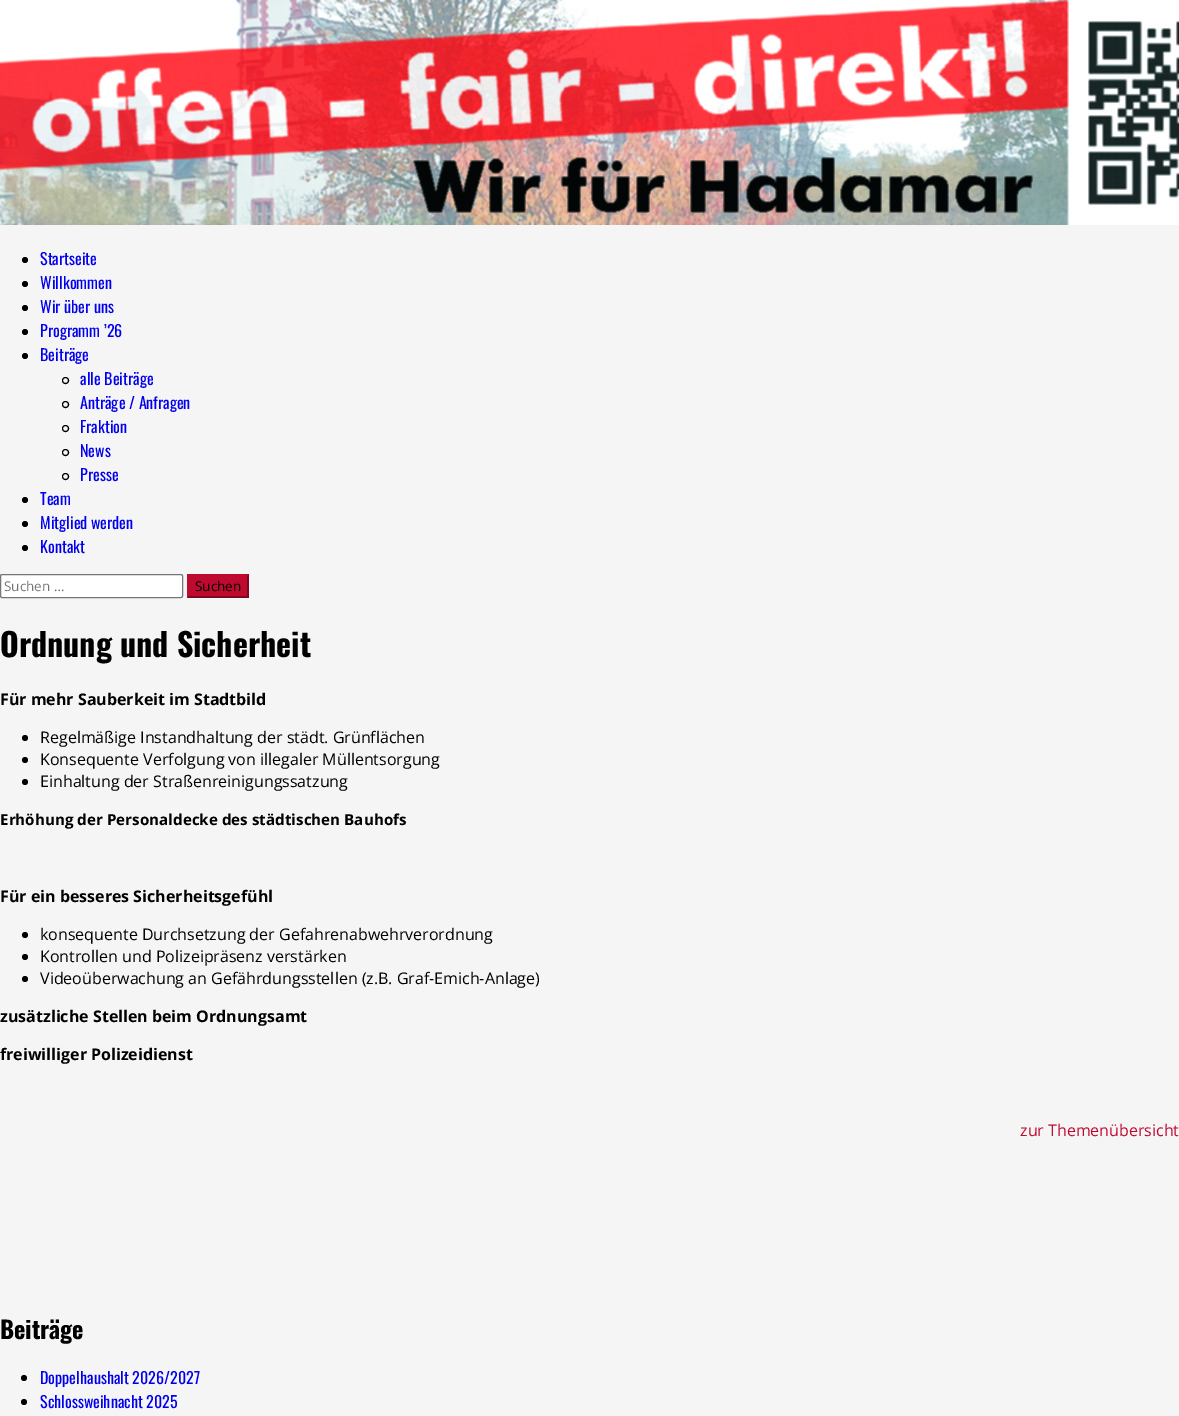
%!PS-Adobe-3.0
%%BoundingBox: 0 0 1179 1416
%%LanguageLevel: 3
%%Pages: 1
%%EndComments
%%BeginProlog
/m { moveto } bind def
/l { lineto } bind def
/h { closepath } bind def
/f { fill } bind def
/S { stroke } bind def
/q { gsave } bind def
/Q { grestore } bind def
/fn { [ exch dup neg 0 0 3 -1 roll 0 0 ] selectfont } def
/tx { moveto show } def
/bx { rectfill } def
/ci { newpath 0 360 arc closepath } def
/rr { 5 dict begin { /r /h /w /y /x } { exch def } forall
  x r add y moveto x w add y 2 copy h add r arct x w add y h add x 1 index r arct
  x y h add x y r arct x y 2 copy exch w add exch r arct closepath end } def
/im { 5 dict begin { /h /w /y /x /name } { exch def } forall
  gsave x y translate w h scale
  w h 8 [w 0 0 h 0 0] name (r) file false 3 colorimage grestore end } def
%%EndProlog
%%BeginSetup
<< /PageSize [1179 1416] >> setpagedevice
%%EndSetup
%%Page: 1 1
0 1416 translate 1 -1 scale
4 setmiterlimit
0.961 setgray
0 0 1179 1416 bx
(image0.raw) 0 0 1179 225 im
0 setgray
25 260 3 ci f
/Oswald-Regular 16 fn
0 0 0.933 setrgbcolor
(Startseite) 40 265 tx
0 setgray
25 284 3 ci f
0 0 0.933 setrgbcolor
(Willkommen) 40 289 tx
0 setgray
25 308 3 ci f
0 0 0.933 setrgbcolor
(Wir über uns) 40 313 tx
0 setgray
25 332 3 ci f
0 0 0.933 setrgbcolor
(Programm ’26) 40 337 tx
0 setgray
25 356 3 ci f
0 0 0.933 setrgbcolor
(Beiträge) 40 361 tx
0 setgray
65.5 380.5 3 ci S
0 0 0.933 setrgbcolor
(alle Beiträge) 80 385 tx
0 setgray
65.5 404.5 3 ci S
0 0 0.933 setrgbcolor
(Anträge / Anfragen) 80 409 tx
0 setgray
65.5 428.5 3 ci S
0 0 0.933 setrgbcolor
(Fraktion) 80 433 tx
0 setgray
65.5 452.5 3 ci S
0 0 0.933 setrgbcolor
(News) 80 457 tx
0 setgray
65.5 476.5 3 ci S
0 0 0.933 setrgbcolor
(Presse) 80 481 tx
0 setgray
25 500 3 ci f
0 0 0.933 setrgbcolor
(Team) 40 505 tx
0 setgray
25 524 3 ci f
0 0 0.933 setrgbcolor
(Mitglied werden) 40 529 tx
0 setgray
25 548 3 ci f
0 0 0.933 setrgbcolor
(Kontakt) 40 553 tx
1 setgray
0.5 574.5 182 23 1.5 rr q f Q
0.463 setgray
S
/OpenSans-Regular 13.5 fn
0.459 setgray
(Suchen …) 4 591 tx
0.749 0.039 0.188 setrgbcolor
187 574 62 24 bx
0.498 0.027 0.125 setrgbcolor
249 574 m 249 598 l 247 596 l 247 576 l h f
249 598 m 187 598 l 189 596 l 247 596 l h f
0.749 0.039 0.188 setrgbcolor
187 598 m 187 574 l 189 576 l 189 596 l h f
0 setgray
(Suchen) 195 591 tx
/Oswald-Bold 32 fn
(Ordnung und Sicherheit) 0 657 tx
/OpenSans-Bold 16 fn
(Für mehr Sauberkeit im Stadtbild) 0 705 tx
25 738 3 ci f
/OpenSans-Regular 16 fn
(Regelmäßige Instandhaltung der städt. Grünflächen) 40 743 tx
25 760 3 ci f
(Konsequente Verfolgung von illegaler Müllentsorgung) 40 765 tx
25 782 3 ci f
(Einhaltung der Straßenreinigungssatzung) 40 787 tx
/OpenSans-Bold 15.2 fn
(Erhöhung der Personaldecke des städtischen Bauhofs) 0 825 tx
/OpenSans-Bold 16 fn
(Für ein besseres Sicherheitsgefühl) 0 902 tx
25 935 3 ci f
/OpenSans-Regular 16 fn
(konsequente Durchsetzung der Gefahrenabwehrverordnung) 40 940 tx
25 957 3 ci f
(Kontrollen und Polizeipräsenz verstärken) 40 962 tx
25 979 3 ci f
(Videoüberwachung an Gefährdungsstellen \(z.B. Graf-Emich-Anlage\)) 40 984 tx
/OpenSans-Bold 16 fn
(zusätzliche Stellen beim Ordnungsamt) 0 1022 tx
(freiwilliger Polizeidienst) 0 1060 tx
/OpenSans-Regular 16 fn
0.749 0.039 0.188 setrgbcolor
(zur Themenübersicht) 1020 1136 tx
/Oswald-Bold 24 fn
0 setgray
(Beiträge) 0 1339 tx
24 1378 3 ci f
/Oswald-Regular 16 fn
0 0 0.933 setrgbcolor
(Doppelhaushalt 2026/2027) 40 1384 tx
0 setgray
24 1402 3 ci f
0 0 0.933 setrgbcolor
(Schlossweihnacht 2025) 40 1408 tx
showpage
%%EOF
